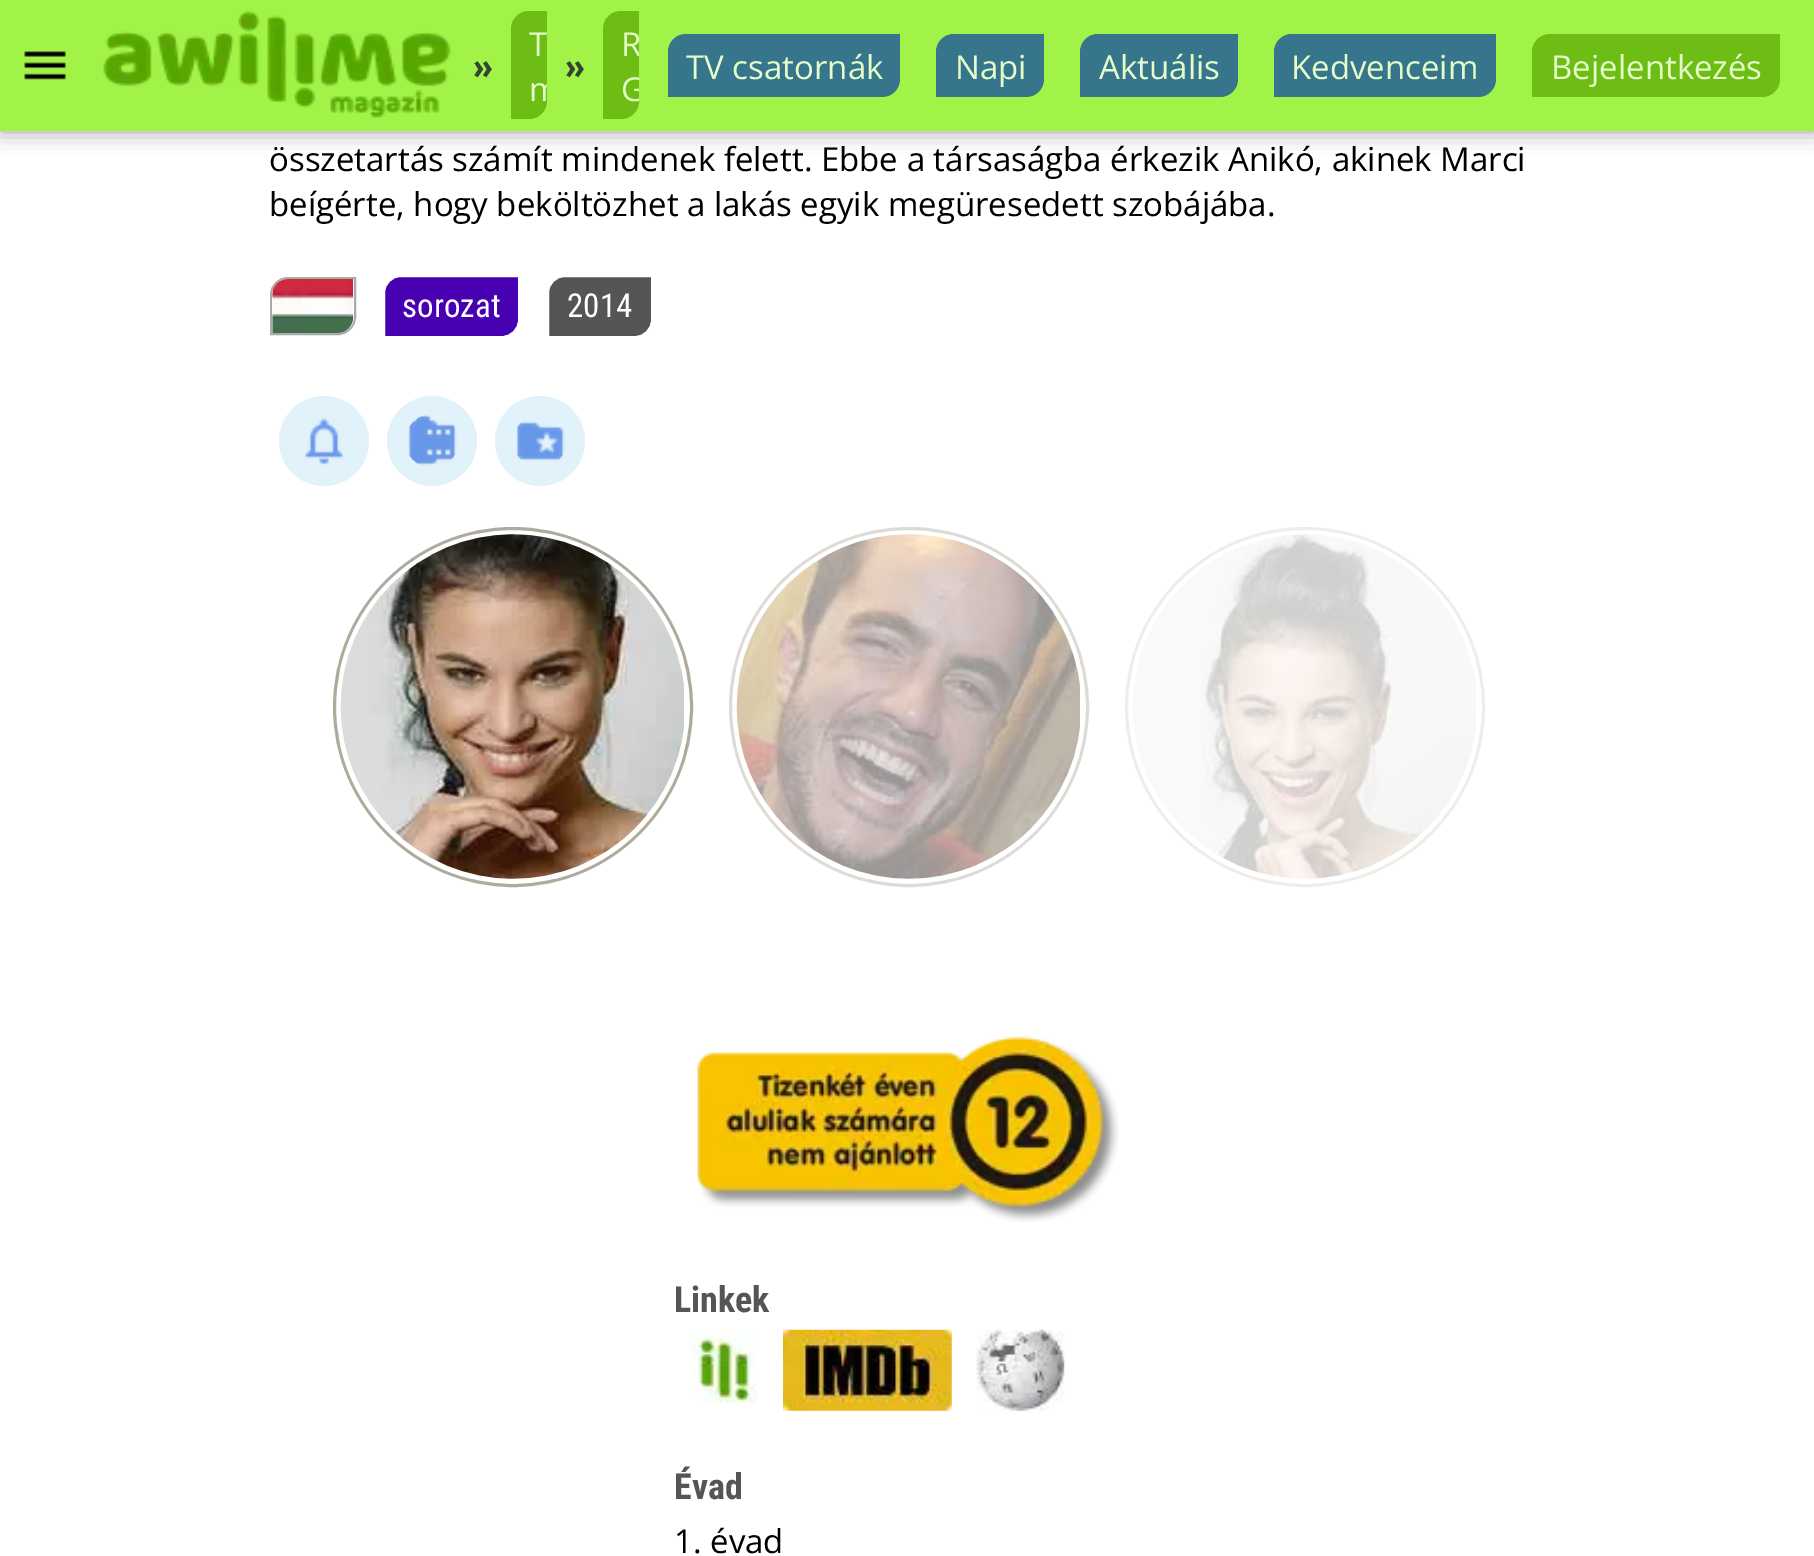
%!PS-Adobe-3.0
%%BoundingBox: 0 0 1814 1556
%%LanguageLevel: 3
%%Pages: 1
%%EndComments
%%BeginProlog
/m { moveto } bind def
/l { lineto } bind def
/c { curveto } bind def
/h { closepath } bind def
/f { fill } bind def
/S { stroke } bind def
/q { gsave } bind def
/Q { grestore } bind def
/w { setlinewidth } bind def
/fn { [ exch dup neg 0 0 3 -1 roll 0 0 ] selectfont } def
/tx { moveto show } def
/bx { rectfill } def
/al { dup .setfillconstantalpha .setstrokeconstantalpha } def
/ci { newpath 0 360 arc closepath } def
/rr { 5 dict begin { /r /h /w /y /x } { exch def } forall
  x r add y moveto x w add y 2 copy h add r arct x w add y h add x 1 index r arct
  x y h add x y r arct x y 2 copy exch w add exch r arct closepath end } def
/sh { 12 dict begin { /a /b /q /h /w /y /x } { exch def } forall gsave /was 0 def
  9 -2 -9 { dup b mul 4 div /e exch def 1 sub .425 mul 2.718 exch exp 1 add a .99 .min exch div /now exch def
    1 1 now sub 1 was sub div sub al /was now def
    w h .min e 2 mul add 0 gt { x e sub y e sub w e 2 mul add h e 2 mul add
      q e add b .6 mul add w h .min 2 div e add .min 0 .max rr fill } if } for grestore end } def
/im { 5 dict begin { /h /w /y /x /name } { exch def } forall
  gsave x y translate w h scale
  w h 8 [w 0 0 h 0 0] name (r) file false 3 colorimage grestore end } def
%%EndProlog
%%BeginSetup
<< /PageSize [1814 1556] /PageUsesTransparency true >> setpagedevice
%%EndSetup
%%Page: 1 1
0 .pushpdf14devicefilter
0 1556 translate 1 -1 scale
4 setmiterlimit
1 setgray
0 0 1814 1556 bx
0 setgray
0 0 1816 131 0 11 0.4 sh
0.631 0.957 0.278 setrgbcolor
0 0 1814 131 bx
(image0.raw) 24 51 42 29 im
(image1.raw) 103 10 348 108 im
/OpenSansCondensed-Bold 36 fn
0.2 0.267 0.2 setrgbcolor
(») 473 79 tx
0.427 0.741 0.082 setrgbcolor
529 11 m 547 11 l 547 101 l 547 111 539 119 529 119 c 511 119 l 511 29 l 511 19 519 11 529 11 c h f
/OpenSans-Regular 33 fn
0.89 0.988 0.784 setrgbcolor
(T) 529 56 tx
q
529 11 m 547 11 l 547 101 l 547 111 539 119 529 119 c 511 119 l 511 29 l 511 19 519 11 529 11 c h clip newpath
(m) 529 101 tx
Q
/OpenSansCondensed-Bold 36 fn
0.2 0.267 0.2 setrgbcolor
(») 565 79 tx
0.427 0.741 0.082 setrgbcolor
621 11 m 639 11 l 639 101 l 639 111 631 119 621 119 c 603 119 l 603 29 l 603 19 611 11 621 11 c h f
q
621 11 m 639 11 l 639 101 l 639 111 631 119 621 119 c 603 119 l 603 29 l 603 19 611 11 621 11 c h clip newpath
/OpenSans-Regular 33 fn
0.89 0.988 0.784 setrgbcolor
(R) 621 56 tx
(G) 621 101 tx
Q
0.212 0.459 0.549 setrgbcolor
686 34 m 900 34 l 900 79 l 900 89 892 97 882 97 c 668 97 l 668 52 l 668 42 676 34 686 34 c h f
/OpenSans-Regular 33 fn
0.89 0.988 0.784 setrgbcolor
(TV csatornák) 686 79 tx
0.212 0.459 0.549 setrgbcolor
954 34 m 1044 34 l 1044 79 l 1044 89 1036 97 1026 97 c 936 97 l 936 52 l 936 42 944 34 954 34 c h f
0.89 0.988 0.784 setrgbcolor
(Napi) 955 79 tx
0.212 0.459 0.549 setrgbcolor
1098 34 m 1238 34 l 1238 79 l 1238 89 1230 97 1220 97 c 1080 97 l 1080 52 l 1080 42 1088 34 1098 34 c h f
0.89 0.988 0.784 setrgbcolor
(Aktuális) 1099 79 tx
0.212 0.459 0.549 setrgbcolor
1292 34 m 1496 34 l 1496 79 l 1496 89 1488 97 1478 97 c 1274 97 l 1274 52 l 1274 42 1282 34 1292 34 c h f
0.89 0.988 0.784 setrgbcolor
(Kedvenceim) 1291 79 tx
0.427 0.741 0.082 setrgbcolor
1550 34 m 1780 34 l 1780 79 l 1780 89 1772 97 1762 97 c 1532 97 l 1532 52 l 1532 42 1540 34 1550 34 c h f
0.89 0.988 0.784 setrgbcolor
(Bejelentkezés) 1551 79 tx
0 setgray
(összetartás számít mindenek felett. Ebbe a társaságba érkezik Anikó, akinek Marci) 269 171 tx
(beígérte, hogy beköltözhet a lakás egyik megüresedett szobájába.) 269 216 tx
0.667 setgray
2 w
288 278 m 355 278 l 355 317 l 355 326.5 347.5 334 338 334 c 271 334 l 271 295 l 271 285.5 278.5 278 288 278 c h S
(image2.raw) 272 279 82 54 im
0.278 0 0.698 setrgbcolor
401 276 m 519 276 l 519 320 l 519 329.5 511.5 337 502 337 c 384 337 l 384 293 l 384 283.5 391.5 276 401 276 c h q f Q
1 setgray
S
/RobotoCondensed-Regular 33 fn
(sorozat) 402 317 tx
0.333 setgray
565 276 m 652 276 l 652 320 l 652 329.5 644.5 337 635 337 c 548 337 l 548 293 l 548 283.5 555.5 276 565 276 c h q f Q
1 setgray
S
(2014) 567 317 tx
0.886 0.949 0.98 setrgbcolor
324 441 45 ci f
(image3.raw) 304 418 40 47 im
432 441 45 ci f
(image4.raw) 408 415 49 51 im
540 441 45 ci f
(image5.raw) 516 421 49 40 im
0.682 0.671 0.612 setrgbcolor
3 w
513 707 178.5 ci S
(image6.raw) 340 534 344 345 im
0.867 0.859 0.835 setrgbcolor
909 707 178.5 ci S
(image7.raw) 736 534 344 345 im
0.933 0.929 0.918 setrgbcolor
1305 707 178.5 ci S
(image8.raw) 1133 534 343 345 im
(image9.raw) 697 1036 422 186 im
/RobotoCondensed-Bold 36 fn
0.333 setgray
(Linkek) 674 1312 tx
(image10.raw) 690 1329 67 76 im
(image11.raw) 783 1329 169 82 im
(image12.raw) 976 1329 89 82 im
(Évad) 674 1499 tx
/OpenSans-Regular 33 fn
0 setgray
(1. évad) 674 1553 tx
.poppdf14devicefilter showpage
%%EOF
